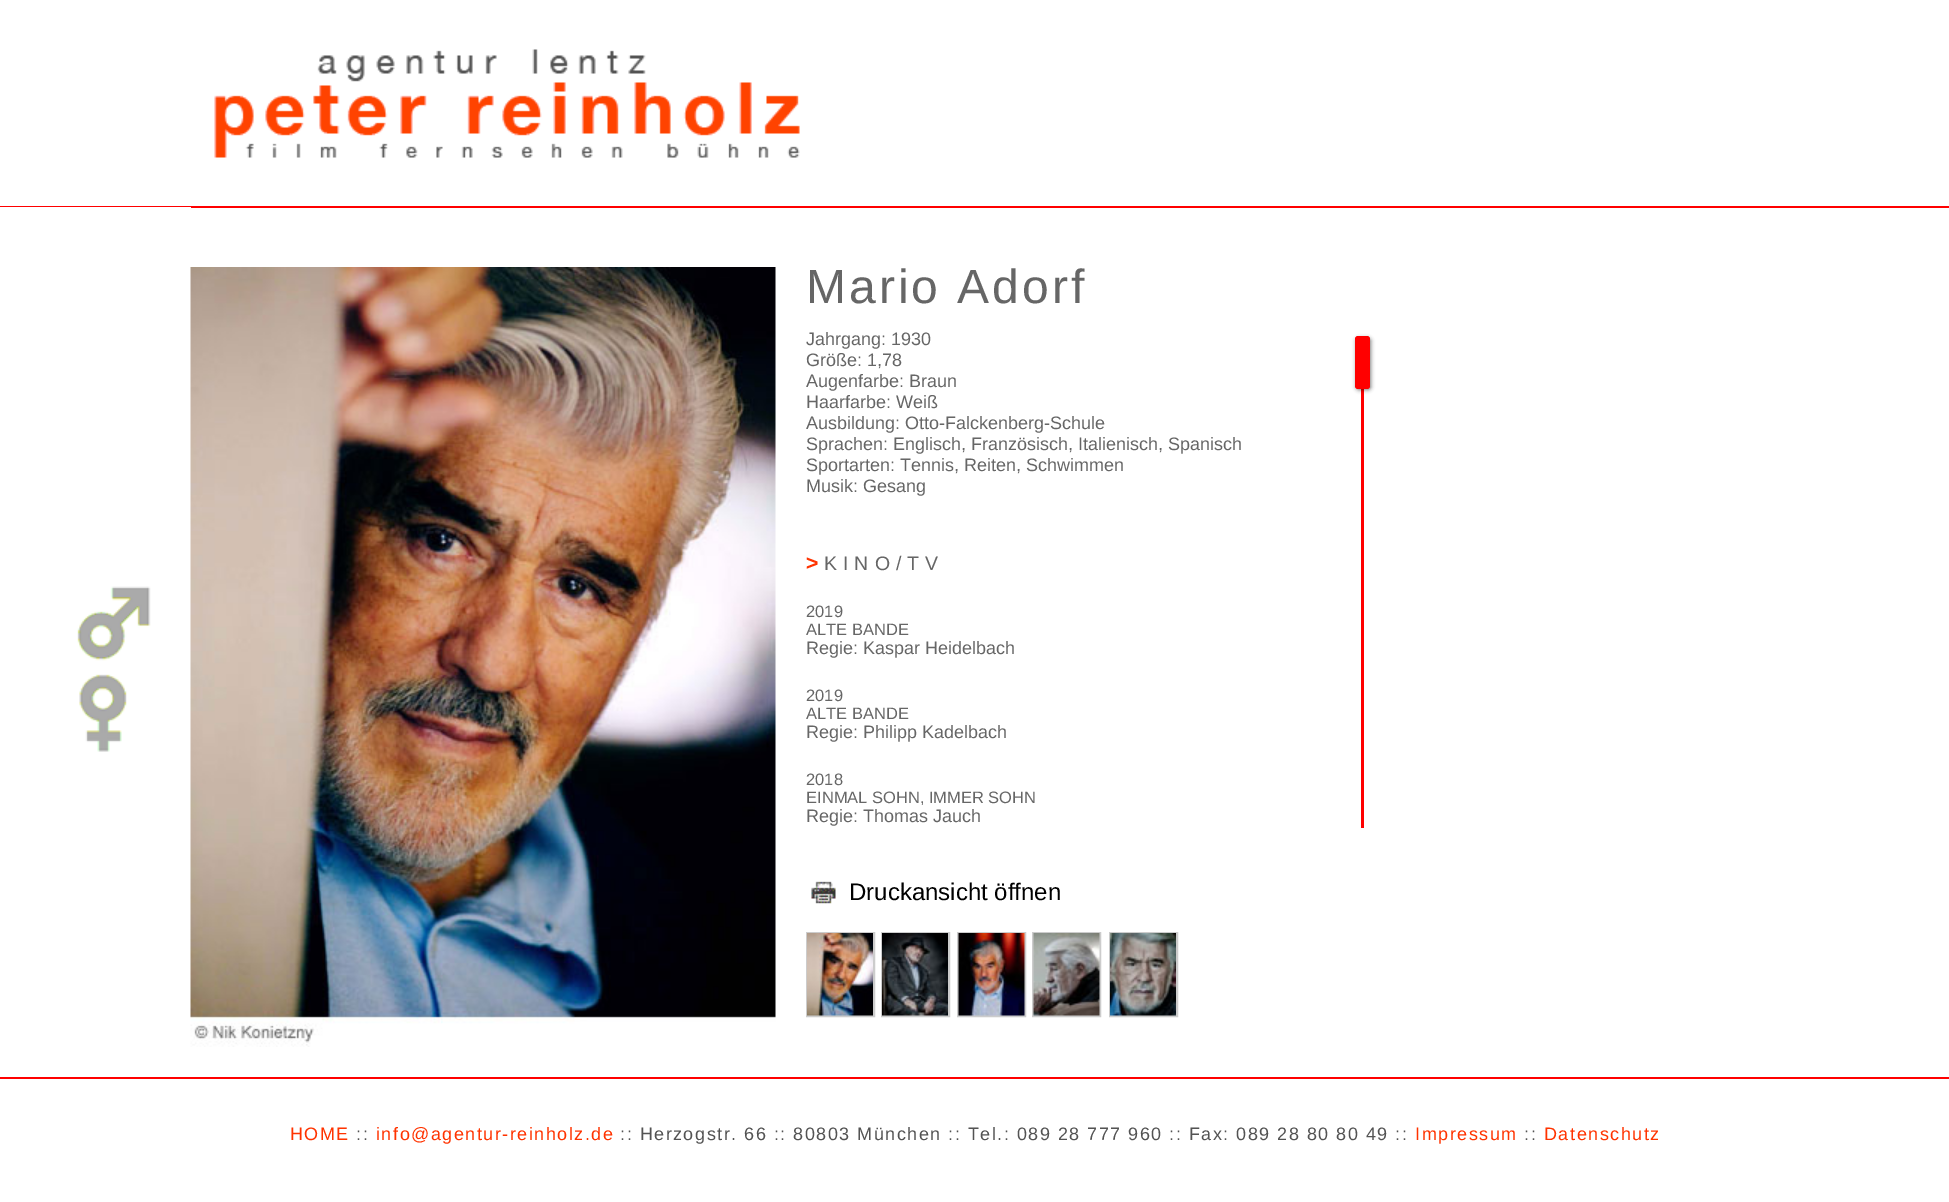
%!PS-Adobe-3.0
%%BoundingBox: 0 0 1949 1202
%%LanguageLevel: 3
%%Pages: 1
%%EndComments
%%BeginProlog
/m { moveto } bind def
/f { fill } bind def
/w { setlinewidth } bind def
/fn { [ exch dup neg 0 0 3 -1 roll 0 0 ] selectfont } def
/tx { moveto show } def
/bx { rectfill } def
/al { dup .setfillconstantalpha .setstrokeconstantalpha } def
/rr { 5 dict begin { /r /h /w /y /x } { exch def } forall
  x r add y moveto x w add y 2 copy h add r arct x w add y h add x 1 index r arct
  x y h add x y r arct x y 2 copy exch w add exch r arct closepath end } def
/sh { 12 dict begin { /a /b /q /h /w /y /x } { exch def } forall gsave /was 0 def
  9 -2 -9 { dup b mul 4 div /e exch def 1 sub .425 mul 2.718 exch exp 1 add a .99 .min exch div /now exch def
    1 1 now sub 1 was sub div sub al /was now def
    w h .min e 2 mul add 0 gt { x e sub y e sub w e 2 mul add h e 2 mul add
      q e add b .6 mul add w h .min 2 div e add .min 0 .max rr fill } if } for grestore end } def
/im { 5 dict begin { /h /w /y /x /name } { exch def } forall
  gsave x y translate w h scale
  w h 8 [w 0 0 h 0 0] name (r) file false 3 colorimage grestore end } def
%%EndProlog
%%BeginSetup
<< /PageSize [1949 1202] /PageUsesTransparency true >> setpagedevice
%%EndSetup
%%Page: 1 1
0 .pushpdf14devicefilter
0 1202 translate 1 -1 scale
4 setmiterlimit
1 setgray
0 0 1949 1202 bx
1 0 0 setrgbcolor
0 206 1949 2 bx
(image0.raw) 214 49 586 109 im
1 setgray
0 207 191 1 bx
(image1.raw) 77 586 74 75 im
(image2.raw) 79 674 48 78 im
(image3.raw) 190 267 586 780 im
/LiberationSans-Regular 48 fn
0.4 setgray
806 303 m 3 0 (Mario Adorf) ashow
/LiberationSans-Regular 18 fn
(Jahrgang: 1930) 806 345 tx
(Größe: 1,78) 806 366 tx
(Augenfarbe: Braun) 806 387 tx
(Haarfarbe: Weiß) 806 408 tx
(Ausbildung: Otto-Falckenberg-Schule) 806 429 tx
(Sprachen: Englisch, Französisch, Italienisch, Spanisch) 806 450 tx
(Sportarten: Tennis, Reiten, Schwimmen) 806 471 tx
(Musik: Gesang) 806 492 tx
/LiberationSans-Bold 21 fn
1 0.2 0 setrgbcolor
806 570 m 6 0 (>) ashow
/LiberationSans-Regular 19.5 fn
0.4 setgray
824 570 m 6 0 (KINO/TV) ashow
/LiberationSans-Regular 16.5 fn
(2019) 806 617 tx
(ALTE BANDE) 806 635 tx
/LiberationSans-Regular 18 fn
(Regie: Kaspar Heidelbach) 806 654 tx
/LiberationSans-Regular 16.5 fn
(2019) 806 701 tx
(ALTE BANDE) 806 719 tx
/LiberationSans-Regular 18 fn
(Regie: Philipp Kadelbach) 806 738 tx
/LiberationSans-Regular 16.5 fn
(2018) 806 785 tx
(EINMAL SOHN, IMMER SOHN) 806 803 tx
/LiberationSans-Regular 18 fn
(Regie: Thomas Jauch) 806 822 tx
1 0 0 setrgbcolor
1361 389 3 439 bx
0 setgray
1356 338 15 52 3 2 0.5 sh
1 0 0 setrgbcolor
1355 336 15 53 3 rr f
(image4.raw) 811 881 25 23 im
/LiberationSans-Regular 24 fn
0 setgray
(Druckansicht öffnen) 849 900 tx
0.8 setgray
2 w
807 933 67 83 rectstroke
882 933 67 83 rectstroke
958 933 67 83 rectstroke
1033 933 67 83 rectstroke
1110 933 67 83 rectstroke
(image5.raw) 807 933 66 83 im
(image6.raw) 882 933 66 83 im
(image7.raw) 958 933 67 83 im
(image8.raw) 1033 933 67 83 im
(image9.raw) 1110 933 66 83 im
1 0 0 setrgbcolor
0 1077 1949 2 bx
/LiberationSans-Regular 18 fn
1 0.2 0 setrgbcolor
290 1140 m 1.5 0 (HOME) ashow
0.325 setgray
356 1140 m 1.5 0 (::) ashow
1 0.2 0 setrgbcolor
376 1140 m 1.5 0 (info@agentur-reinholz.de) ashow
0.325 setgray
620 1140 m 1.5 0 (:: Herzogstr. 66 :: 80803 München :: Tel.: 089 28 777 960 :: Fax: 089 28 80 80 49 ::) ashow
1 0.2 0 setrgbcolor
1415 1140 m 1.5 0 (Impressum) ashow
0.325 setgray
1524 1140 m 1.5 0 (::) ashow
1 0.2 0 setrgbcolor
1544 1140 m 1.5 0 (Datenschutz) ashow
.poppdf14devicefilter showpage
%%EOF
